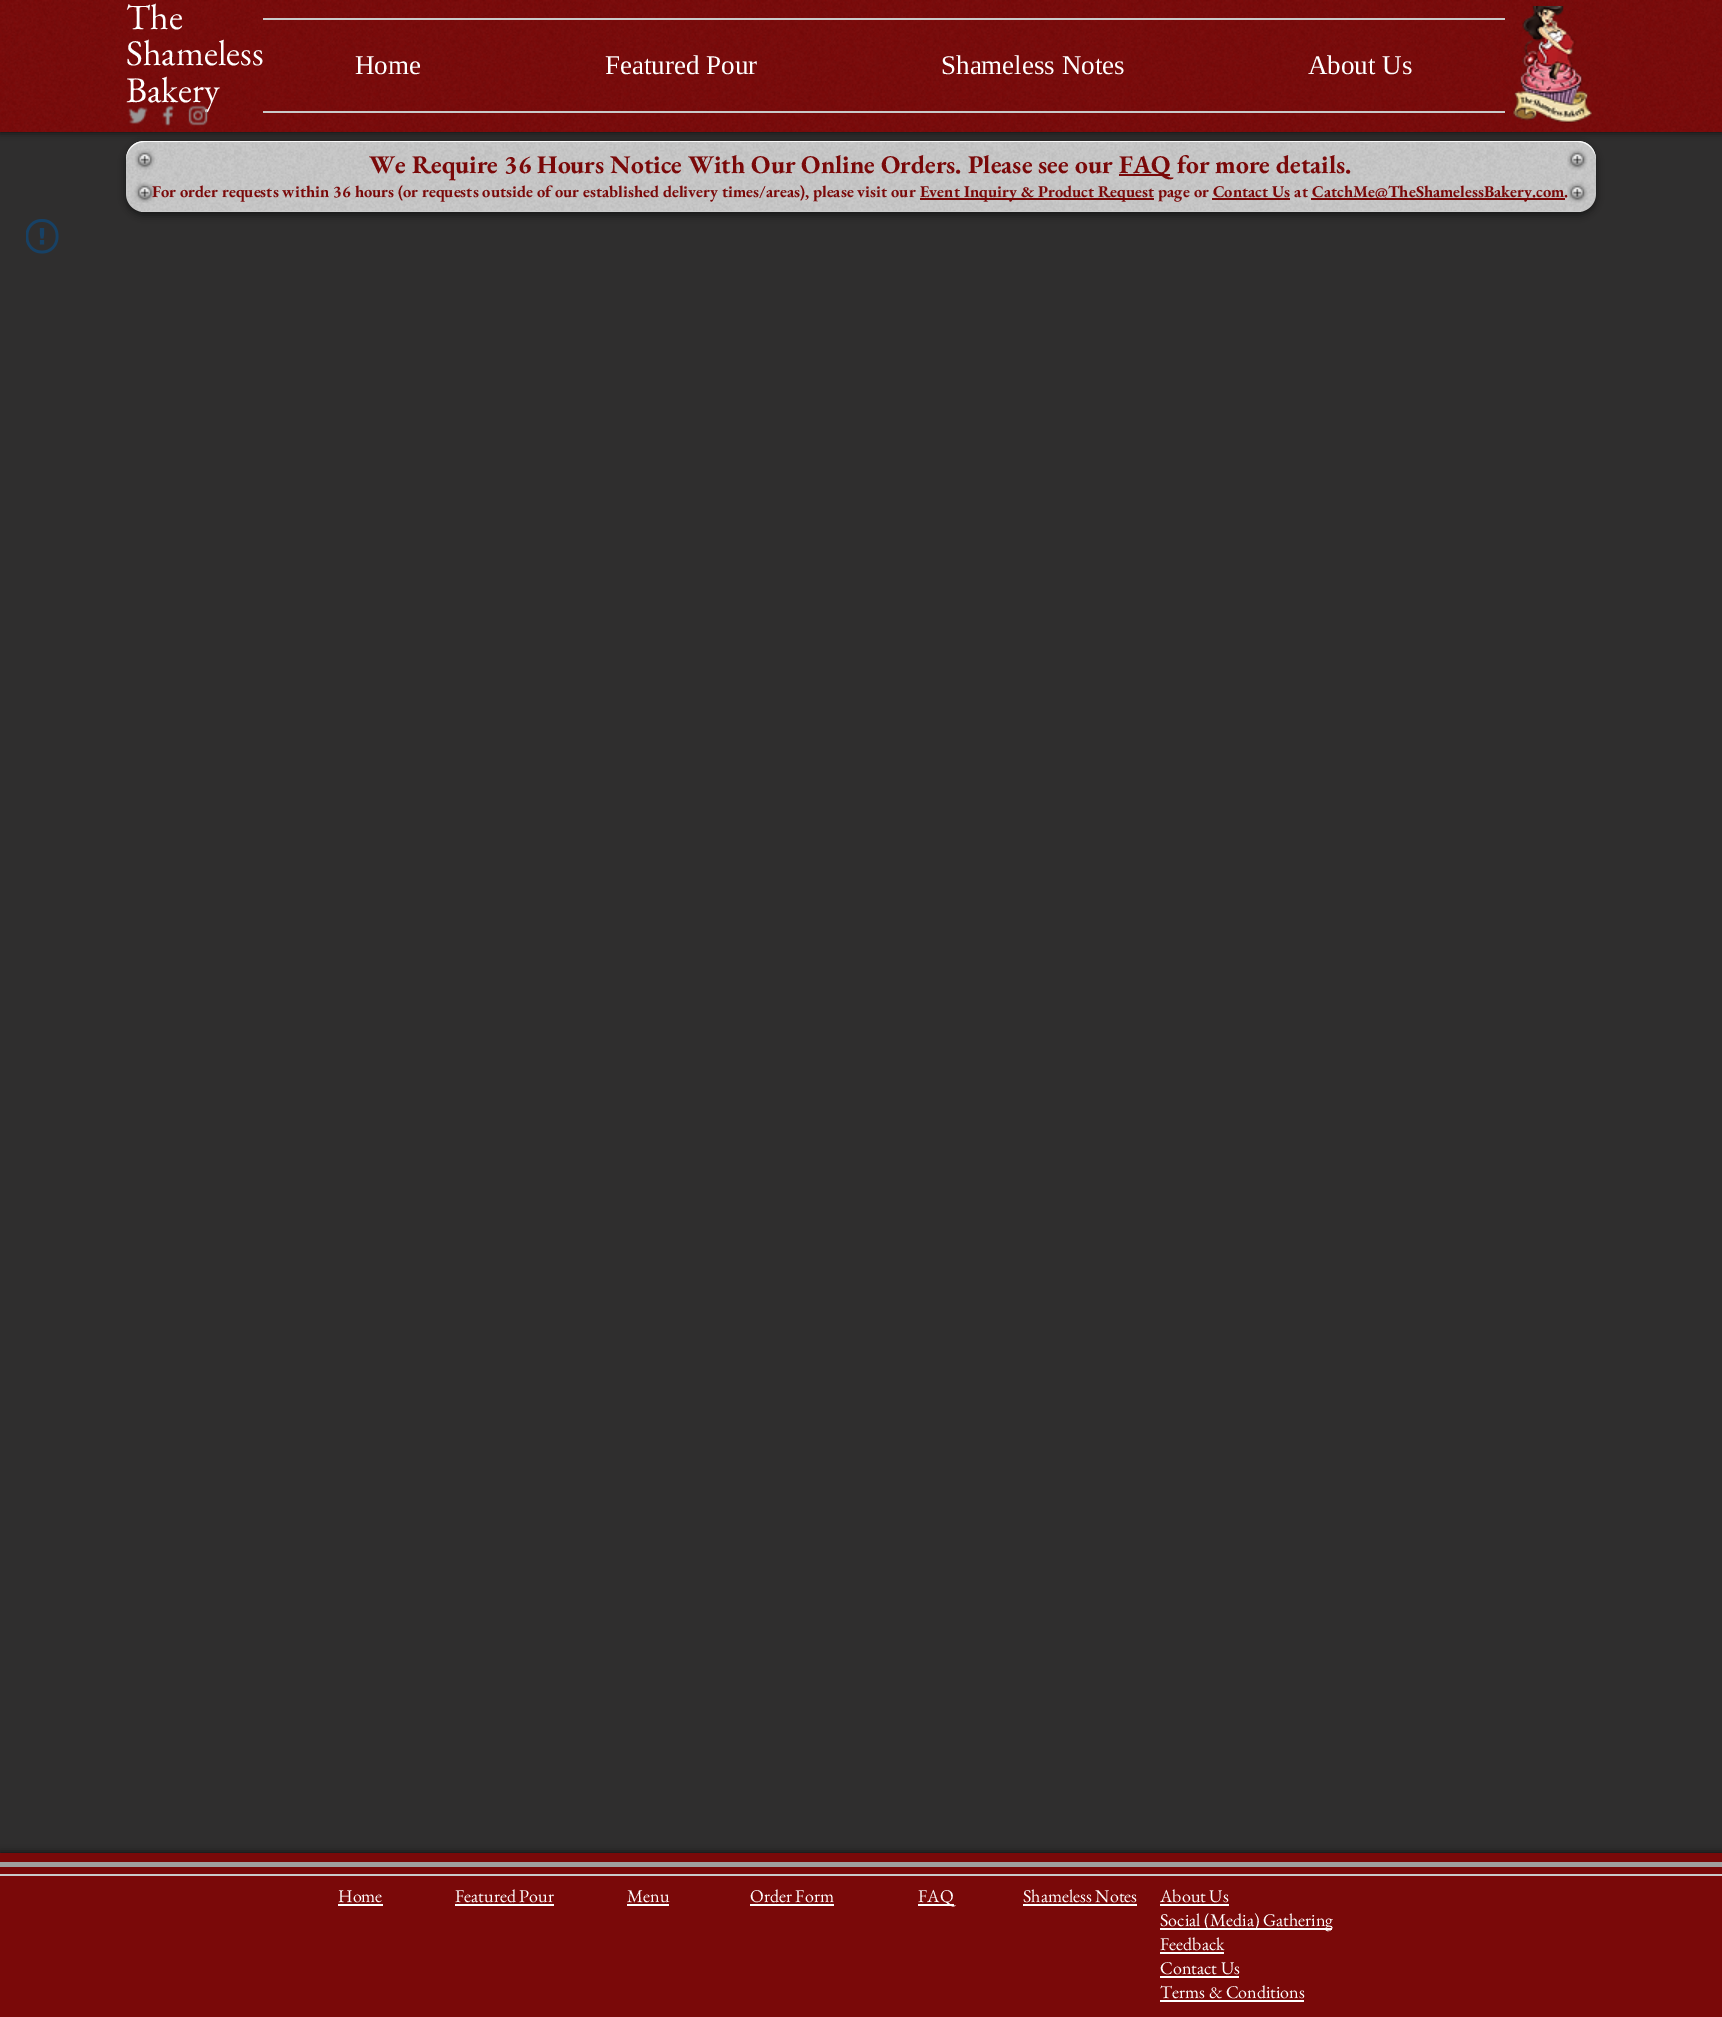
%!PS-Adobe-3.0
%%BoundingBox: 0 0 1722 2017
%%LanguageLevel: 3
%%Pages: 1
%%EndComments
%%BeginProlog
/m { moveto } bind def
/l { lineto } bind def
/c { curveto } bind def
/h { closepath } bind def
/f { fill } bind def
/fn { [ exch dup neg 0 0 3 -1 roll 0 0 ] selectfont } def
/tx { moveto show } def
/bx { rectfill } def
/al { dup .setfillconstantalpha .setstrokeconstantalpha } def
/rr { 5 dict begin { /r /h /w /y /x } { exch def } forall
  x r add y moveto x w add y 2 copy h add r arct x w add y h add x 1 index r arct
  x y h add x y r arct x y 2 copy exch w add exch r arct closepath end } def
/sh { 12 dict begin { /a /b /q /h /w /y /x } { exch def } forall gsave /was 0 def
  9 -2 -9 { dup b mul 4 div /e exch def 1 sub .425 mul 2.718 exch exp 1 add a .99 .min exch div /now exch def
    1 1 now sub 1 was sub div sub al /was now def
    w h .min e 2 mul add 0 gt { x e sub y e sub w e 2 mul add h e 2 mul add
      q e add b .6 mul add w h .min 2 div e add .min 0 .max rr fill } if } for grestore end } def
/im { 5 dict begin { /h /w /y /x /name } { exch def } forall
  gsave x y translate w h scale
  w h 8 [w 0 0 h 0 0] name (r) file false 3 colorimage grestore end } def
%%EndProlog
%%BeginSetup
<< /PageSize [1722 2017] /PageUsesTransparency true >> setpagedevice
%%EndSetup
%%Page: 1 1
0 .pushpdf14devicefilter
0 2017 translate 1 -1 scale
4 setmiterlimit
0.184 0.18 0.18 setrgbcolor
0 0 1722 2017 bx
0 setgray
126 144 1470 71 18 4 0.53 sh
0.792 setgray
126 141 1470 71 18 rr f
(image5.raw) 126 141 1470 70 im
0.92 al
1 setgray
144 142 m 1578 142 l 1588 142 1596 151 1596 160 c 1596 150 1589 141 1578 141 c 144 141 l 133 141 126 150 126 160 c 126 151 134 142 144 142 c h f
1 al
0 setgray
0 0 1722 132 0 4 0.7 sh
0.478 0.035 0.035 setrgbcolor
0 0 1722 132 bx
(image0.raw) 0 0 1722 132 im
/EBGaramond-Regular 36 fn
1 setgray
(The) 126 29 tx
(Shameless) 126 65 tx
(Bakery) 126 102 tx
0.792 setgray
263 18 1242 2 bx
263 111 1242 2 bx
/LiberationSerif-Regular 27 fn
1 setgray
(Home) 355 74 tx
(Featured Pour) 605 74 tx
(Shameless Notes) 941 74 tx
(About Us) 1308 74 tx
(image1.raw) 1513 6 79 117 im
(image2.raw) 128 107 20 17 im
(image3.raw) 162 105 12 21 im
(image4.raw) 188 105 20 21 im
(image6.raw) 134 149 21 21 im
/EBGaramond-Bold 25.5 fn
0.478 0.035 0.035 setrgbcolor
(We Require 36 Hours Notice With Our Online Orders. Please see our) 369 173 tx
1119 174 51 2 bx
(FAQ for more details.) 1119 173 tx
(image8.raw) 134 182 21 21 im
/EBGaramond-Bold 16.5 fn
(For order requests within 36 hours \(or requests outside of our established delivery times/areas\), please visit our) 152 197 tx
920 198 234 2 bx
(Event Inquiry & Product Request page or Contact Us at) 920 197 tx
1212 198 78 2 bx
1311 198 254 2 bx
(image9.raw) 1567 182 21 21 im
(CatchMe@TheShamelessBakery.com.) 1312 197 tx
(image7.raw) 1567 149 21 21 im
(image10.raw) 26 219 33 35 im
0 setgray
0 1853 1722 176 0 4 0.7 sh
0.478 0.035 0.035 setrgbcolor
0 1853 1722 164 bx
0.627 0.627 0.624 setrgbcolor
0 1862 1722 5 bx
0.792 setgray
0 1874 1722 2 bx
/EBGaramond-Regular 18 fn
1 setgray
(Home) 338 1902 tx
338 1904 45 2 bx
(Featured Pour) 455 1902 tx
455 1904 99 2 bx
(Menu) 627 1902 tx
627 1904 42 2 bx
(Order Form) 750 1902 tx
750 1904 84 2 bx
918 1904 36 2 bx
(FAQ) 918 1902 tx
(Shameless Notes) 1023 1902 tx
1023 1904 114 2 bx
(About Us) 1160 1902 tx
1160 1904 69 2 bx
1160 1928 172 2 bx
(Social \(Media\) Gathering) 1160 1926 tx
(Feedback) 1160 1950 tx
1160 1952 64 2 bx
(Contact Us) 1160 1974 tx
1160 1976 79 2 bx
(Terms & Conditions) 1160 1998 tx
1160 2000 144 2 bx
.poppdf14devicefilter showpage
%%EOF
